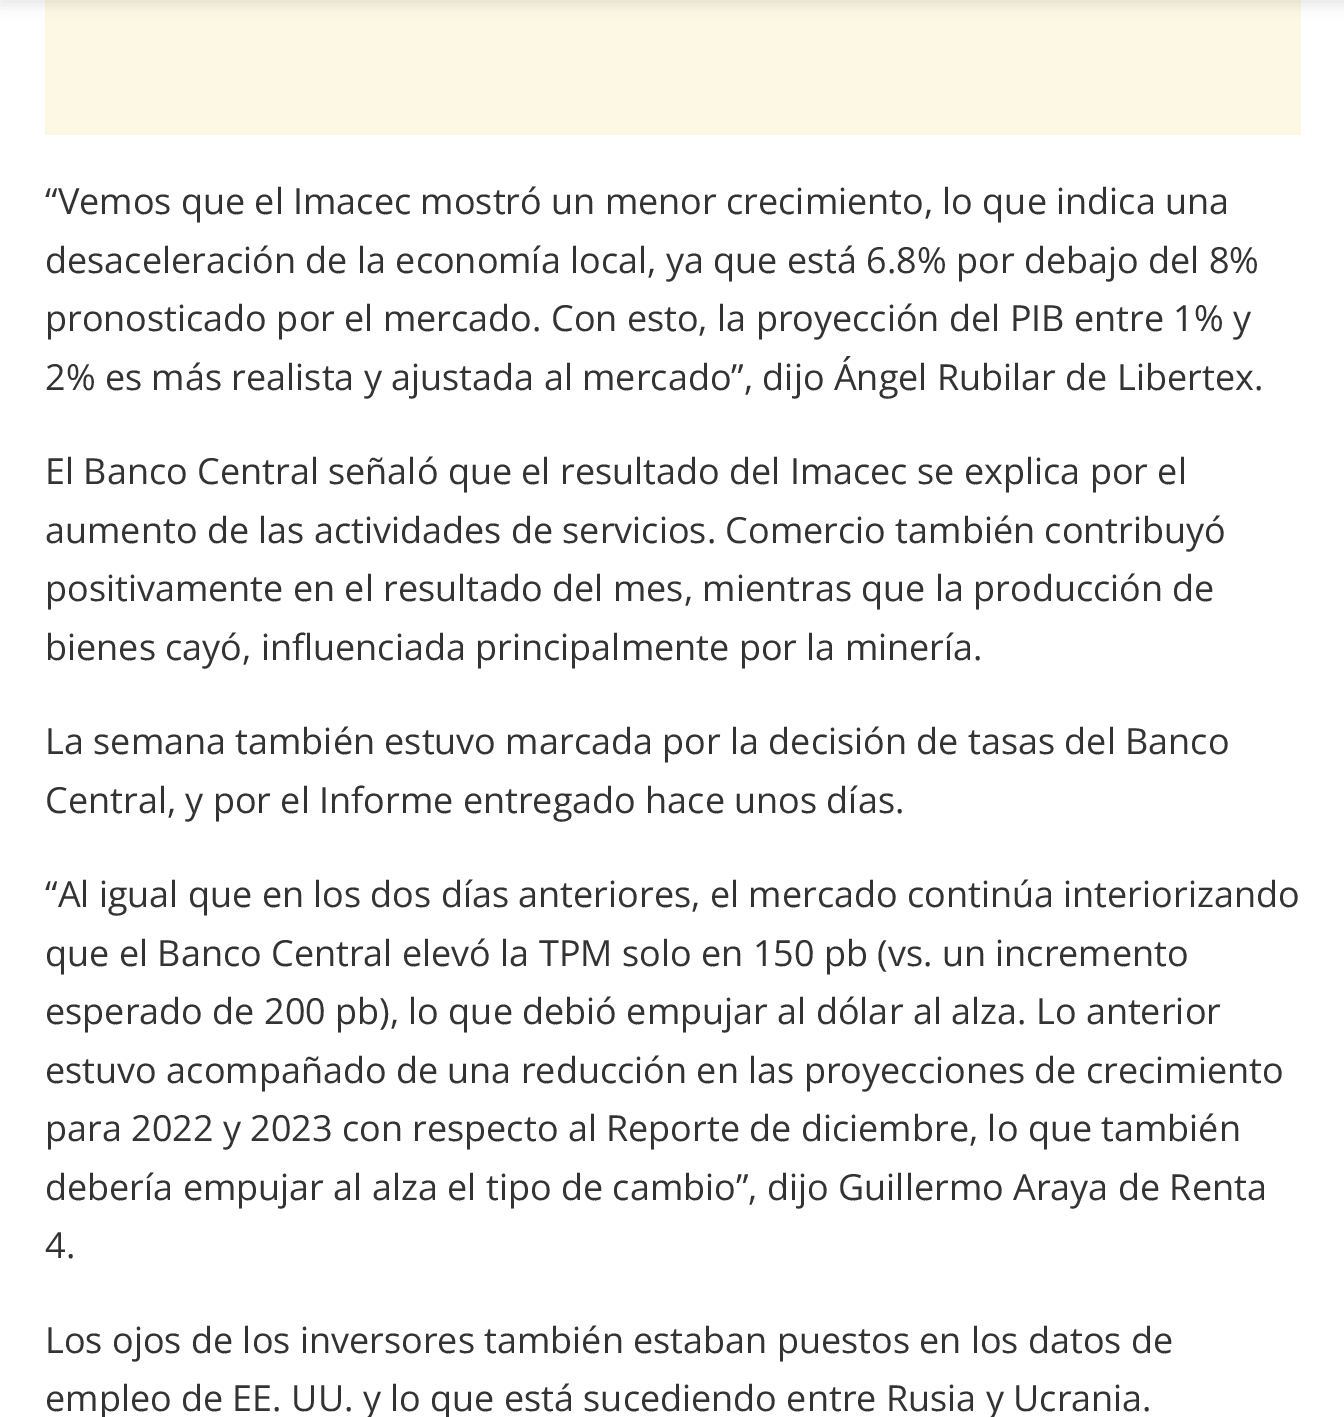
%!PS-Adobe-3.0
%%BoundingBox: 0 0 1344 1417
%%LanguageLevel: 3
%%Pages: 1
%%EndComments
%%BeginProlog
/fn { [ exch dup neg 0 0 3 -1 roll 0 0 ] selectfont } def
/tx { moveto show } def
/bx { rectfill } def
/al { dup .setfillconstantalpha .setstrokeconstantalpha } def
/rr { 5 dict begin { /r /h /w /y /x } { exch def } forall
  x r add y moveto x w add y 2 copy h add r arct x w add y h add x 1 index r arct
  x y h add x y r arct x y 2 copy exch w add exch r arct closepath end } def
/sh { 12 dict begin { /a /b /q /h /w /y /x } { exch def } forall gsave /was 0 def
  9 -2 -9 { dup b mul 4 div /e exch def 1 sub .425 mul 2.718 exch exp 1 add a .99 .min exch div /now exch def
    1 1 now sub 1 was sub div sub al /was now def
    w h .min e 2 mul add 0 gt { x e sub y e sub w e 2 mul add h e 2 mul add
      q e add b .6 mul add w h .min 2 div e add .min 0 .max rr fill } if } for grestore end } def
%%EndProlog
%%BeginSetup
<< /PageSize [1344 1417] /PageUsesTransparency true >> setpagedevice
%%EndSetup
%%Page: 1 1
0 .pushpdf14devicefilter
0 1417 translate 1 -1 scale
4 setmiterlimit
1 setgray
0 0 1344 1417 bx
0.988 0.973 0.89 setrgbcolor
45 0 1256 135 bx
0 setgray
0 -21 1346 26 0 7 0.1 sh
/OpenSans-Regular 36 fn
0.2 setgray
(“Vemos que el Imacec mostró un menor crecimiento, lo que indica una) 45 214 tx
(desaceleración de la economía local, ya que está 6.8% por debajo del 8%) 45 273 tx
(pronosticado por el mercado. Con esto, la proyección del PIB entre 1% y) 45 331 tx
(2% es más realista y ajustada al mercado”, dijo Ángel Rubilar de Libertex.) 45 390 tx
(El Banco Central señaló que el resultado del Imacec se explica por el) 45 484 tx
(aumento de las actividades de servicios. Comercio también contribuyó) 45 543 tx
(positivamente en el resultado del mes, mientras que la producción de) 45 601 tx
(bienes cayó, influenciada principalmente por la minería.) 45 660 tx
(La semana también estuvo marcada por la decisión de tasas del Banco) 45 754 tx
(Central, y por el Informe entregado hace unos días.) 45 813 tx
(“Al igual que en los dos días anteriores, el mercado continúa interiorizando) 45 907 tx
(que el Banco Central elevó la TPM solo en 150 pb \(vs. un incremento) 45 966 tx
(esperado de 200 pb\), lo que debió empujar al dólar al alza. Lo anterior) 45 1024 tx
(estuvo acompañado de una reducción en las proyecciones de crecimiento) 45 1083 tx
(para 2022 y 2023 con respecto al Reporte de diciembre, lo que también) 45 1141 tx
(debería empujar al alza el tipo de cambio”, dijo Guillermo Araya de Renta) 45 1200 tx
(4.) 45 1258 tx
(Los ojos de los inversores también estaban puestos en los datos de) 45 1353 tx
(empleo de EE. UU. y lo que está sucediendo entre Rusia y Ucrania.) 45 1411 tx
.poppdf14devicefilter showpage
%%EOF
